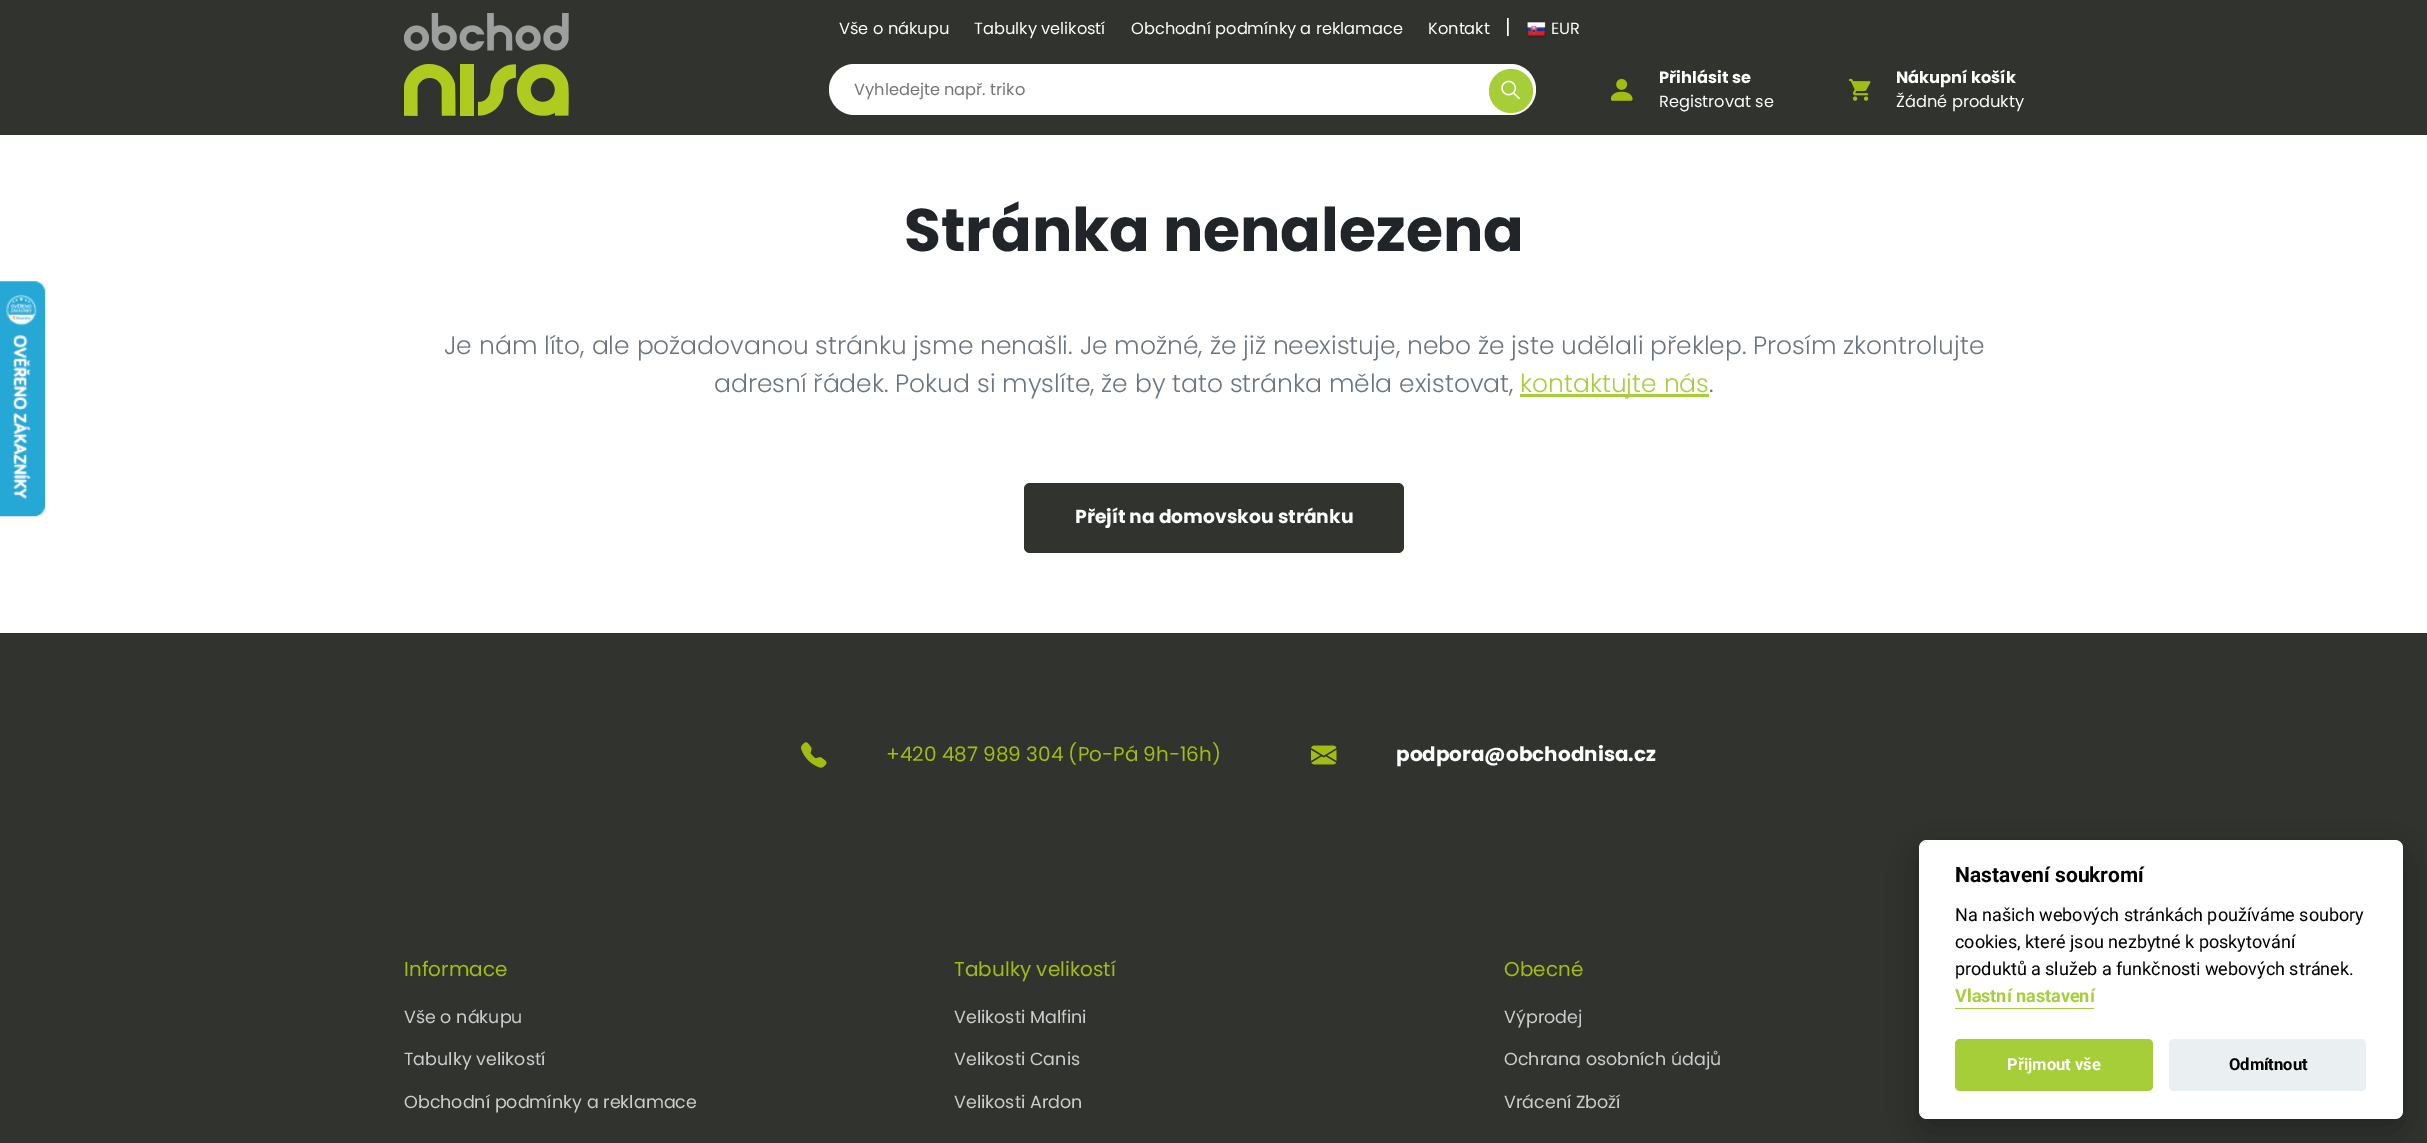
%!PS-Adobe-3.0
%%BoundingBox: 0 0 2427 1143
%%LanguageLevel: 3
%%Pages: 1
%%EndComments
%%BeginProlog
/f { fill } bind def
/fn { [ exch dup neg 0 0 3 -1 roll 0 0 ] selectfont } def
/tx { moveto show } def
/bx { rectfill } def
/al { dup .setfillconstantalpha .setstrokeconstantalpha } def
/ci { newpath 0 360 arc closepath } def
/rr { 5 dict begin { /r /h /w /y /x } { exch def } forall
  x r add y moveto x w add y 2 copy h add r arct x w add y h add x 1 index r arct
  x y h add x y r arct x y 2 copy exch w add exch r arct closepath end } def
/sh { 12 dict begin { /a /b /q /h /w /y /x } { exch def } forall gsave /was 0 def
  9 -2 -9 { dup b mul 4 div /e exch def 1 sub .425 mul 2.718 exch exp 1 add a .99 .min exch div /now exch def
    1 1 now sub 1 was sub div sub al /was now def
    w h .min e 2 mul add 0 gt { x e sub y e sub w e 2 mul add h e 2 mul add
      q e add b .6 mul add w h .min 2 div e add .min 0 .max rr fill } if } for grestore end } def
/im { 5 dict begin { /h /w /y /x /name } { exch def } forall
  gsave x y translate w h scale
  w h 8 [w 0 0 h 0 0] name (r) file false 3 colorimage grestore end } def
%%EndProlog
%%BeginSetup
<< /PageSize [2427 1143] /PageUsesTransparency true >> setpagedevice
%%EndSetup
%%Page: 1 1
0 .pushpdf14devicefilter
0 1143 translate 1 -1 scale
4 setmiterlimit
1 setgray
0 0 2427 1143 bx
0.188 0.2 0.18 setrgbcolor
0 0 2427 135 bx
(image0.raw) 404 13 165 103 im
/Poppins-Regular 16.25 fn
1 setgray
(Vše o nákupu) 839 34 tx
(Tabulky velikostí) 974 34 tx
(Obchodní podmínky a reklamace) 1131 34 tx
(Kontakt) 1428 34 tx
/Poppins-Regular 20 fn
(|) 1505 34 tx
(image1.raw) 1526 21 20 17 im
/Poppins-Regular 16.25 fn
(EUR) 1551 34 tx
829 64 707 51 25.5 rr f
0.459 setgray
(Vyhledejte např. triko) 854 95 tx
0.651 0.808 0.224 setrgbcolor
1511 91 22 ci f
(image2.raw) 1501 80 19 19 im
(image3.raw) 1611 78 22 23 im
/Poppins-Bold 16.25 fn
1 setgray
(Přihlásit se) 1659 83 tx
/Poppins-Regular 16.25 fn
(Registrovat se) 1659 107 tx
(image4.raw) 1849 78 22 23 im
/Poppins-Bold 16.25 fn
(Nákupní košík) 1896 83 tx
/Poppins-Regular 16.25 fn
(Žádné produkty) 1896 107 tx
(image5.raw) 0 281 45 236 im
/Poppins-Bold 60 fn
0.129 0.145 0.161 setrgbcolor
(Stránka nenalezena) 904 251 tx
/Poppins-Light 25 fn
0.424 0.459 0.49 setrgbcolor
(Je nám líto, ale požadovanou stránku jsme nenašli. Je možné, že již neexistuje, nebo že jste udělali překlep. Prosím zkontrolujte) 444 354 tx
(adresní řádek. Pokud si myslíte, že by tato stránka měla existovat,) 714 392 tx
0.651 0.808 0.224 setrgbcolor
1520 394 189 3 bx
(kontaktujte nás) 1520 392 tx
0.424 0.459 0.49 setrgbcolor
(.) 1709 392 tx
0.188 0.2 0.18 setrgbcolor
1024 483 380 70 6 rr f
/Poppins-Bold 18.75 fn
1 setgray
(Přejít na domovskou stránku) 1075 523 tx
0.188 0.2 0.18 setrgbcolor
0 633 2427 510 bx
(image6.raw) 801 742 26 26 im
/Poppins-Regular 20 fn
0.635 0.737 0.067 setrgbcolor
(+420 487 989 304 \(Po-Pá 9h-16h\)) 886 761 tx
(image7.raw) 1311 745 26 20 im
/Poppins-Bold 20 fn
1 setgray
(podpora@obchodnisa.cz) 1396 761 tx
/Poppins-Regular 20 fn
0.635 0.737 0.067 setrgbcolor
(Informace) 404 976 tx
/Poppins-Regular 17.5 fn
0.8 setgray
(Vše o nákupu) 404 1023 tx
(Tabulky velikostí) 404 1065 tx
(Obchodní podmínky a reklamace) 404 1108 tx
/Poppins-Regular 20 fn
0.635 0.737 0.067 setrgbcolor
(Tabulky velikostí) 954 976 tx
/Poppins-Regular 17.5 fn
0.8 setgray
(Velikosti Malfini) 954 1023 tx
(Velikosti Canis) 954 1065 tx
(Velikosti Ardon) 954 1108 tx
/Poppins-Regular 20 fn
0.635 0.737 0.067 setrgbcolor
(Obecné) 1504 976 tx
/Poppins-Regular 17.5 fn
0.8 setgray
(Výprodej) 1504 1023 tx
(Ochrana osobních údajů) 1504 1065 tx
(Vrácení Zboží) 1504 1108 tx
0.008 0.008 0.012 setrgbcolor
1919 853 484 278 8 19 0.28 sh
1 setgray
1919 840 484 279 8 rr f
/Roboto-Bold 21 fn
0 setgray
(Nastavení soukromí) 1955 882 tx
/Roboto-Regular 18 fn
(Na našich webových stránkách používáme soubory) 1955 921 tx
(cookies, které jsou nezbytné k poskytování) 1955 948 tx
(produktů a služeb a funkčnosti webových stránek.) 1955 975 tx
/Roboto-Bold 18 fn
0.651 0.808 0.224 setrgbcolor
(Vlastní nastavení) 1955 1002 tx
1955 1008 139 1 bx
1955 1039 198 52 5 rr f
/Roboto-Bold 16.5 fn
1 setgray
(Přijmout vše) 2007 1070 tx
0.918 0.937 0.949 setrgbcolor
2169 1039 197 52 5 rr f
0 setgray
(Odmítnout) 2229 1070 tx
.poppdf14devicefilter showpage
%%EOF
